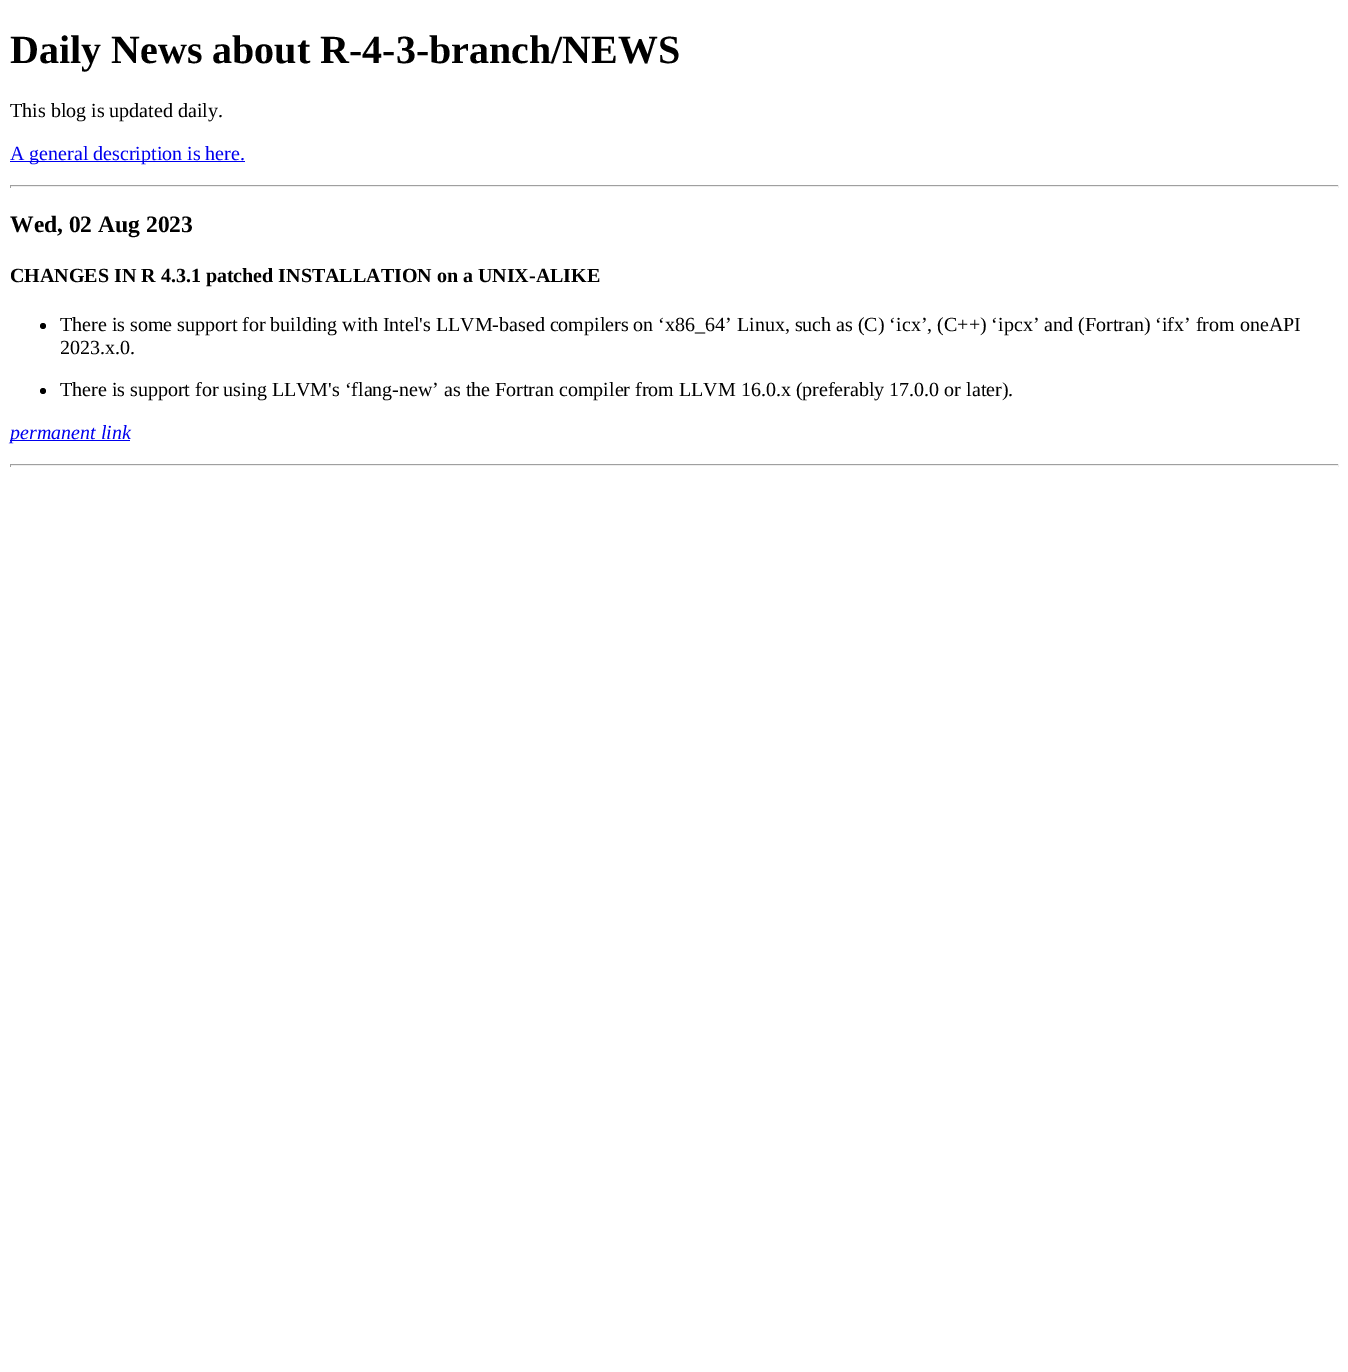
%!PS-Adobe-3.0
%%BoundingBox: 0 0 1348 1372
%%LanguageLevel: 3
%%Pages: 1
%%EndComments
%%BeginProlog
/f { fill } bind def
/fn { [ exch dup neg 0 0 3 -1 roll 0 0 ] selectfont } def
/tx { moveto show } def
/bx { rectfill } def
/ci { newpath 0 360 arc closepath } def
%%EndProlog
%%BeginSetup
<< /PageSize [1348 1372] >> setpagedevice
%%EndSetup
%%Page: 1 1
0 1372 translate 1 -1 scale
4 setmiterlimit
1 setgray
0 0 1348 1372 bx
/LiberationSerif-Bold 40 fn
0 setgray
(Daily News about R-4-3-branch/NEWS) 10 63 tx
/LiberationSerif-Regular 20 fn
(This blog is updated daily.) 10 117 tx
0 0 0.933 setrgbcolor
10 161 235 1 bx
(A general description is here.) 10 160 tx
0.624 setgray
10 185 1329 1 bx
0.933 setgray
1338 185 1 3 bx
10 186 1329 1 bx
0.624 setgray
10 185 1 3 bx
/LiberationSerif-Bold 23.5 fn
0 setgray
(Wed, 02 Aug 2023) 10 232 tx
/LiberationSerif-Bold 20 fn
(CHANGES IN R 4.3.1 patched INSTALLATION on a UNIX-ALIKE) 10 282 tx
43 326 3 ci f
/LiberationSerif-Regular 20 fn
(There is some support for building with Intel's LLVM-based compilers on ‘x86_64’ Linux, such as \(C\) ‘icx’, \(C++\) ‘ipcx’ and \(Fortran\) ‘ifx’ from oneAPI) 60 331 tx
(2023.x.0.) 60 354 tx
43 391 3 ci f
(There is support for using LLVM's ‘flang-new’ as the Fortran compiler from LLVM 16.0.x \(preferably 17.0.0 or later\).) 60 396 tx
0 0 0.933 setrgbcolor
10 440 120 1 bx
/LiberationSerif-Italic 20 fn
(permanent link) 10 439 tx
0.624 setgray
10 464 1329 1 bx
0.933 setgray
1338 464 1 3 bx
10 465 1329 1 bx
0.624 setgray
10 464 1 3 bx
showpage
%%EOF
